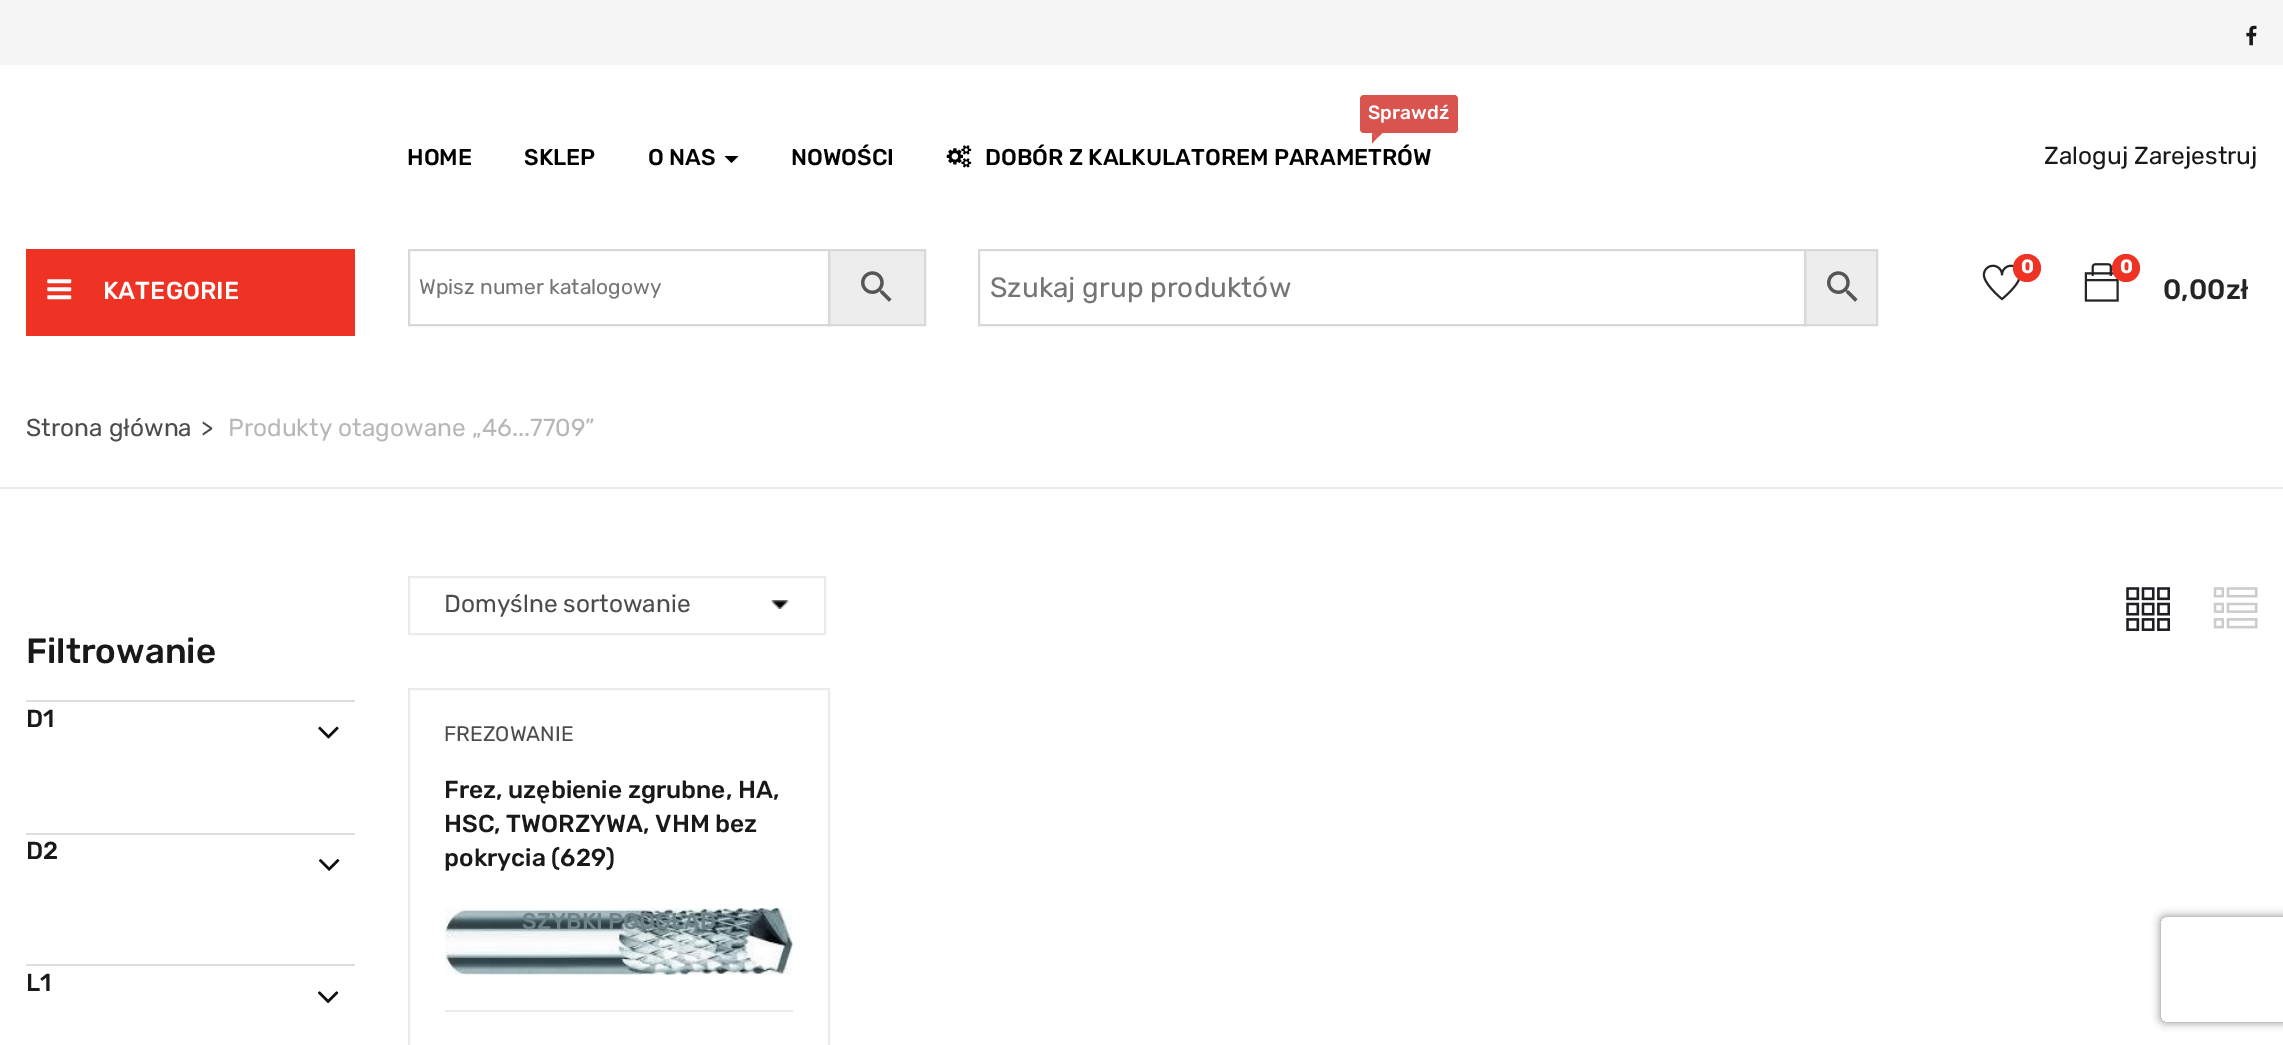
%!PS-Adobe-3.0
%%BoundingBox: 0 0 2283 1045
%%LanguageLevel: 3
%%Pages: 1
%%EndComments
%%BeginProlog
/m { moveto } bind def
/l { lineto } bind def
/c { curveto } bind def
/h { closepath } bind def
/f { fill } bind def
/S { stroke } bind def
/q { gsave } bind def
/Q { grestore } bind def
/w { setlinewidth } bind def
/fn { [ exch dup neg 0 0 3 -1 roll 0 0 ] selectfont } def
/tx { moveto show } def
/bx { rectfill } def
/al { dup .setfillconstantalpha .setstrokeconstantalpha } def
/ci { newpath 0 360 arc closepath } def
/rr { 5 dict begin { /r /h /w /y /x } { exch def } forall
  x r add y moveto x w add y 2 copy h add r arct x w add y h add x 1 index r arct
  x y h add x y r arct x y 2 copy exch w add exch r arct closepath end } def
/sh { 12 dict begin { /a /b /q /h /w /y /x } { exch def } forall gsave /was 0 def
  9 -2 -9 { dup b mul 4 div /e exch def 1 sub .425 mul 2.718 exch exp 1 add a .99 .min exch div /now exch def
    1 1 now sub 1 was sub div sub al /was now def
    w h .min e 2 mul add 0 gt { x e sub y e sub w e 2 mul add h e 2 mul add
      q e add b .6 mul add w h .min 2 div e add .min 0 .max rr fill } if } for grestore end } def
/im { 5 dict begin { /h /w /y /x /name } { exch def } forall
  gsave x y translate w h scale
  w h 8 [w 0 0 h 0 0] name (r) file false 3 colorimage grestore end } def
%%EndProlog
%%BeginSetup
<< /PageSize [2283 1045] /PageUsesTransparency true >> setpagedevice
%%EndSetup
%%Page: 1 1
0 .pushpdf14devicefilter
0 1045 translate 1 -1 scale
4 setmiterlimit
1 setgray
0 0 2283 1045 bx
0.961 setgray
0 0 2283 65 bx
(image0.raw) 2246 25 11 21 im
/Rubik-Medium 22.75 fn
0 setgray
(HOME) 407 165 tx
(SKLEP) 524 165 tx
(O NAS) 648 165 tx
724.5 156 m 738.5 156 l 731.5 163 l h f
(NOWOŚCI) 791 165 tx
0.851 0.325 0.31 setrgbcolor
1360 95 98 38 4 rr f
/Rubik-Medium 19.25 fn
1 setgray
(Sprawdź) 1368 119 tx
0.851 0.325 0.31 setrgbcolor
1372 133 m 1382.5 133 l 1377 138 l h f
1372 143.5 m 1372 133 l 1377 138 l h f
(image1.raw) 946 145 26 23 im
/Rubik-Medium 22.75 fn
0 setgray
(DOBÓR Z KALKULATOREM PARAMETRÓW) 985 165 tx
/Rubik-Regular 24.5 fn
0.098 setgray
(Zaloguj Zarejestruj) 2044 164 tx
0.933 0.196 0.141 setrgbcolor
26 249 329 87 bx
(image2.raw) 47 279 25 21 im
/Rubik-Medium 24.5 fn
1 setgray
(KATEGORIE) 103 299 tx
0.929 setgray
829 250 m 925 250 l 925 325 l 829 325 l h q f Q
0.847 setgray
2 w
S
409 250 420 75 rectstroke
/Rubik-Regular 21 fn
0.459 setgray
(Wpisz numer katalogowy) 419 294 tx
(image3.raw) 861 271 31 31 im
0.929 setgray
1805 250 m 1877 250 l 1877 325 l 1805 325 l h q f Q
0.847 setgray
S
979 250 826 75 rectstroke
/Rubik-Regular 28 fn
0.459 setgray
(Szukaj grup produktów) 990 297 tx
(image3.raw) 1827 271 31 31 im
(image4.raw) 1982 264 38 37 im
0.933 0.196 0.141 setrgbcolor
2027 268 14 ci f
/Rubik-Bold 19.25 fn
1 setgray
(0) 2021 273 tx
(image5.raw) 2084 263 35 39 im
0.933 0.196 0.141 setrgbcolor
2126 268 14 ci f
1 setgray
(0) 2120 273 tx
/Rubik-Medium 28 fn
0.145 setgray
(0,00zł) 2163 299 tx
0.922 setgray
0 487 2283 2 bx
/Rubik-Regular 24.5 fn
0.298 setgray
(Strona główna) 26 436 tx
(>) 201 436 tx
0.718 setgray
(Produkty otagowane „46...7709”) 228 436 tx
/Rubik-Medium 35 fn
0.098 setgray
(Filtrowanie) 26 663 tx
0.867 setgray
26 700 329 2 bx
/Rubik-Medium 24.5 fn
0.098 setgray
(D1) 26 727 tx
(image6.raw) 318 726 21 13 im
0.867 setgray
26 833 329 2 bx
0.098 setgray
(D2) 26 859 tx
(image7.raw) 318 859 22 12 im
0.867 setgray
26 964 329 2 bx
0.098 setgray
(L1) 26 991 tx
(image8.raw) 317 991 22 13 im
(image9.raw) 771 600 19 9 im
0.922 setgray
409 577 416 57 rectstroke
/Rubik-Regular 24.5 fn
0.298 setgray
(Domyślne sortowanie) 444 612 tx
(image10.raw) 2126 587 44 44 im
(image11.raw) 2213 587 45 42 im
0.922 setgray
409 689 420 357 rectstroke
/Rubik-Regular 21 fn
0.298 setgray
(FREZOWANIE) 444 741 tx
/Rubik-Medium 24.5 fn
0.098 setgray
(Frez, uzębienie zgrubne, HA,) 444 798 tx
(HSC, TWORZYWA, VHM bez) 444 832 tx
(pokrycia \(629\)) 444 866 tx
0.922 setgray
445 1010 348 2 bx
(image12.raw) 444 908 349 67 im
/Rubik-Medium 22.75 fn
0.435 0.51 0.529 setrgbcolor
(SZYBKI PODGLĄD) 522 929 tx
q
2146 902 m 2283 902 l 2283 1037 l 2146 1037 l h 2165 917 m 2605 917 l 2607 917 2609 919 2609 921 c 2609 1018 l 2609 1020 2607 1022 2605 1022 c 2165 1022 l 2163 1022 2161 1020 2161 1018 c 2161 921 l 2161 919 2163 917 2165 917 c h eoclip newpath
0.502 setgray
2161 917 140 105 4 4.5 1 sh
Q
.poppdf14devicefilter showpage
%%EOF
